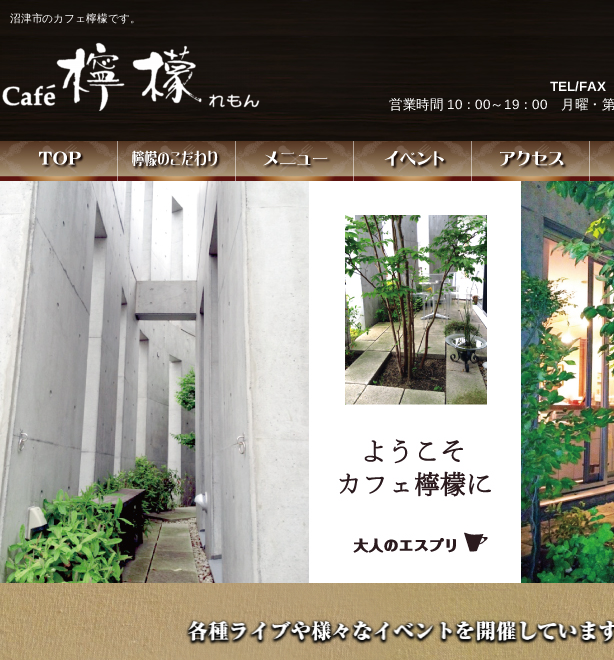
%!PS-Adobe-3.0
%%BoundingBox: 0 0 614 660
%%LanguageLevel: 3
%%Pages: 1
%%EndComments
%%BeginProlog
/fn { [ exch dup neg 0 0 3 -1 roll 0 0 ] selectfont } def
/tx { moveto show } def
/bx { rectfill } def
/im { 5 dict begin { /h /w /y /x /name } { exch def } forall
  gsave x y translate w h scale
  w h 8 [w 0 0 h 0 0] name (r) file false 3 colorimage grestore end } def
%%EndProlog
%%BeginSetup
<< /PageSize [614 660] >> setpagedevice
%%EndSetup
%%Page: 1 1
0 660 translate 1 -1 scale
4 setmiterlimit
1 setgray
0 0 614 660 bx
(image0.raw) 0 0 614 36 im
/WenQuanYiZenHei-Medium 10.75 fn
(沼津市のカフェ檸檬です。) 10 22 tx
(image1.raw) 0 36 614 105 im
(image2.raw) 2 42 258 69 im
/LiberationSans-Bold 13.5 fn
(TEL/FAX) 550 91 tx
/WenQuanYiZenHei-Medium 13.5 fn
(営業時間) 389 109 tx
/LiberationSans-Regular 13.5 fn
(10) 447 109 tx
/WenQuanYiZenHei-Medium 13.5 fn
(：) 462 109 tx
/LiberationSans-Regular 13.5 fn
(00) 475 109 tx
/WenQuanYiZenHei-Medium 13.5 fn
(～) 490 109 tx
/LiberationSans-Regular 13.5 fn
(19) 504 109 tx
/WenQuanYiZenHei-Medium 13.5 fn
(：) 519 109 tx
/LiberationSans-Regular 13.5 fn
(00) 532 109 tx
/WenQuanYiZenHei-Medium 13.5 fn
(月曜・第) 561 109 tx
(image3.raw) 0 141 117 40 im
(image4.raw) 117 141 118 40 im
(image5.raw) 235 141 118 40 im
(image6.raw) 353 141 118 40 im
(image7.raw) 471 141 118 40 im
(image8.raw) 589 141 25 40 im
(image9.raw) 0 181 614 402 im
(image10.raw) 0 583 614 77 im
(image11.raw) 185 619 429 27 im
showpage
%%EOF
